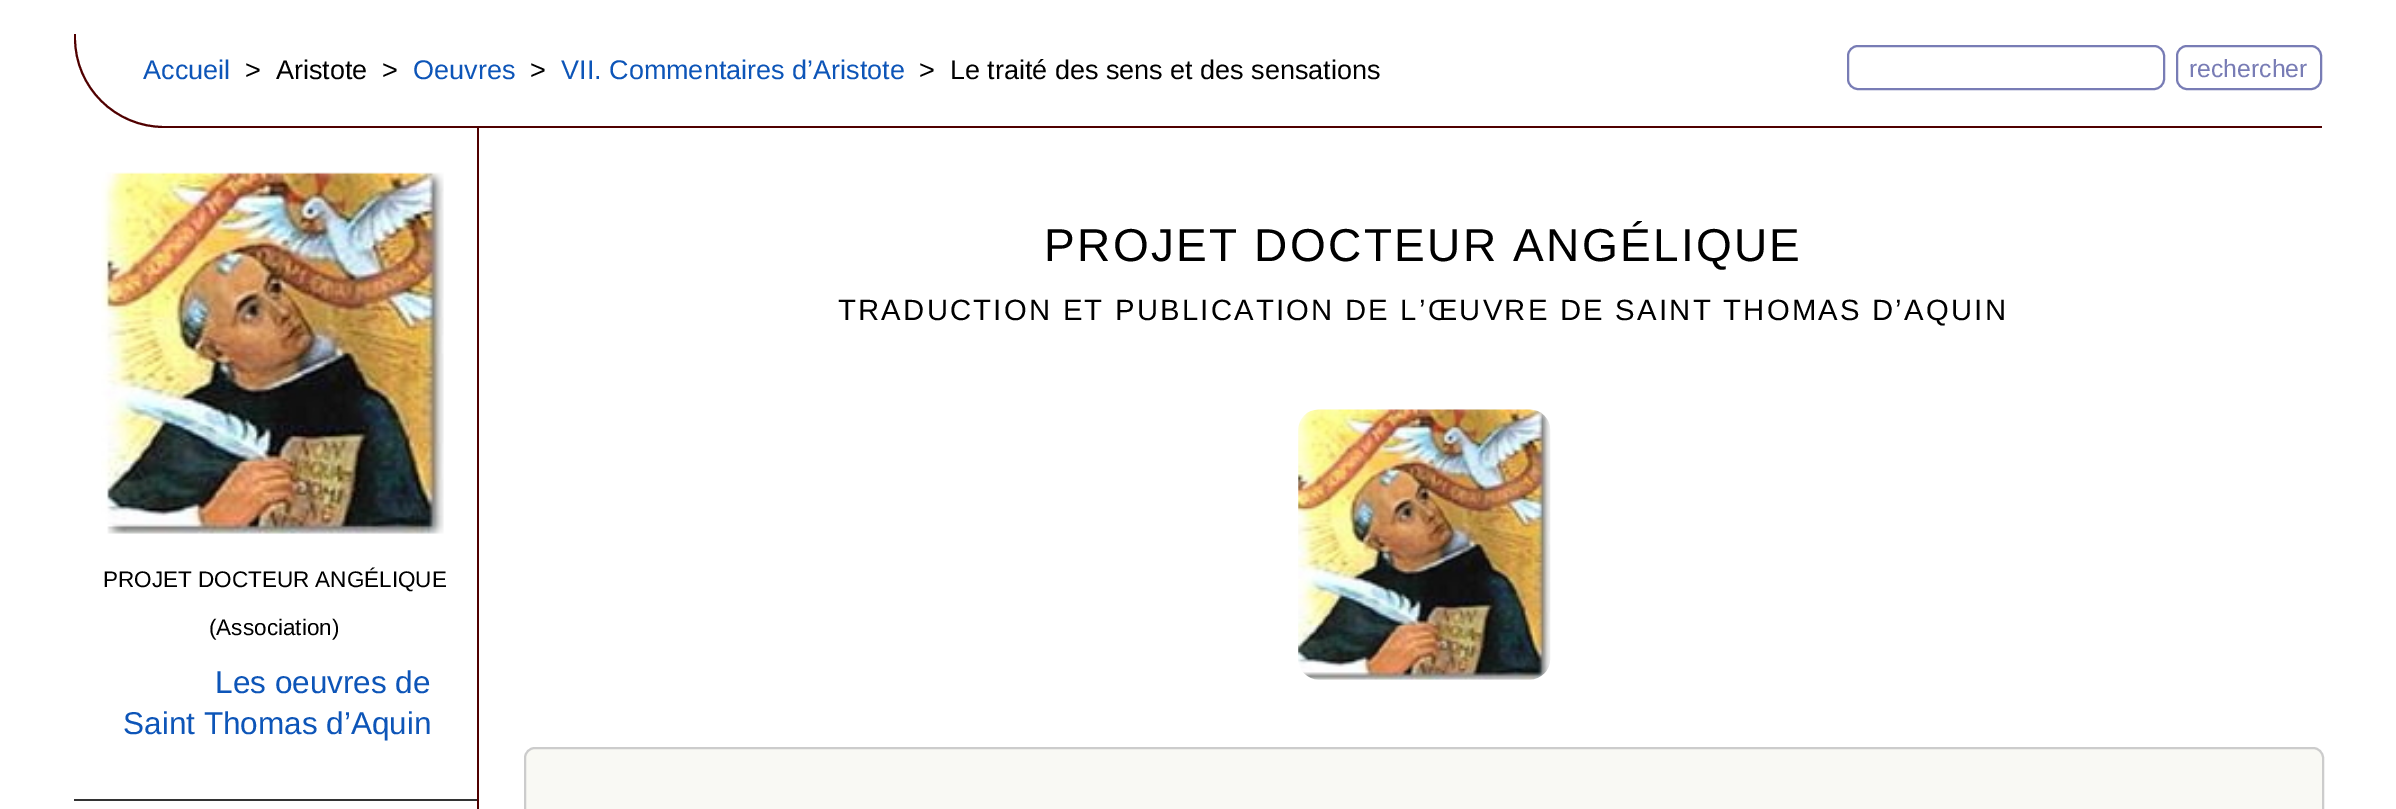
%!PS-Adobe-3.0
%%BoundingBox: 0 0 2396 809
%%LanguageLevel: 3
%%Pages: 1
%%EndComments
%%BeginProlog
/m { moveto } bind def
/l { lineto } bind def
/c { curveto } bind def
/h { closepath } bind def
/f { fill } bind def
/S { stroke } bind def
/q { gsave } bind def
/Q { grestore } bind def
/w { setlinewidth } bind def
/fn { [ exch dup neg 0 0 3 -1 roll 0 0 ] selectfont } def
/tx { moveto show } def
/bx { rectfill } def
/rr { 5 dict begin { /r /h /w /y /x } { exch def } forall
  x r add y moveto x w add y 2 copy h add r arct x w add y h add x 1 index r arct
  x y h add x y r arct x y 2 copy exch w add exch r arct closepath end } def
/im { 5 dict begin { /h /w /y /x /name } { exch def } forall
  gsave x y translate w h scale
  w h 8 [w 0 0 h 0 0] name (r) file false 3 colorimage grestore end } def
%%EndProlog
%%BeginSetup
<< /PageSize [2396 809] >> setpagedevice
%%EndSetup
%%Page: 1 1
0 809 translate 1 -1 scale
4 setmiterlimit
1 setgray
0 0 2396 809 bx
0.314 0 0 setrgbcolor
74 34 m 2322 34 l 2322 128 l 164 128 l 115 128 74 88 74 38 c h 76 34 m 2322 34 l 2322 126 l 164 126 l 116 126 76 87 76 38 c h eofill
/LiberationSans-Regular 27 fn
0.051 0.333 0.722 setrgbcolor
(Accueil) 143 79 tx
0 setgray
(>  Aristote  >) 245 79 tx
0.051 0.333 0.722 setrgbcolor
(Oeuvres) 413 79 tx
0 setgray
(>) 530 79 tx
0.051 0.333 0.722 setrgbcolor
(VII. Commentaires d’Aristote) 561 79 tx
0 setgray
(>  Le traité des sens et des sensations) 919 79 tx
0.471 0.486 0.71 setrgbcolor
2 w
1848 46 316 43 10 rr S
2177 46 144 43 10 rr S
/LiberationSans-Regular 24.75 fn
(rechercher) 2189 77 tx
/LiberationSans-Regular 46.1 fn
0 setgray
1044 261 m 2.25 0 (PROJET DOCTEUR ANGÉLIQUE) ashow
/LiberationSans-Regular 29.25 fn
838 320 m 2.25 0 (TRADUCTION ET PUBLICATION DE L’ŒUVRE DE SAINT THOMAS D’AQUIN) ashow
(image0.raw) 1298 409 253 271 im
0.976 0.976 0.957 setrgbcolor
525 748 1798 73 10 rr q f Q
0.8 setgray
S
0.314 0 0 setrgbcolor
477 128 2 681 bx
(image1.raw) 101 172 343 362 im
/LiberationSans-Regular 22.5 fn
0 setgray
(PROJET DOCTEUR ANGÉLIQUE) 103 587 tx
(\(Association\)) 209 635 tx
/LiberationSans-Regular 31.5 fn
0.051 0.333 0.722 setrgbcolor
(Les oeuvres de) 215 693 tx
(Saint Thomas d’Aquin) 123 734 tx
0.2 setgray
74 799 403 2 bx
showpage
%%EOF
